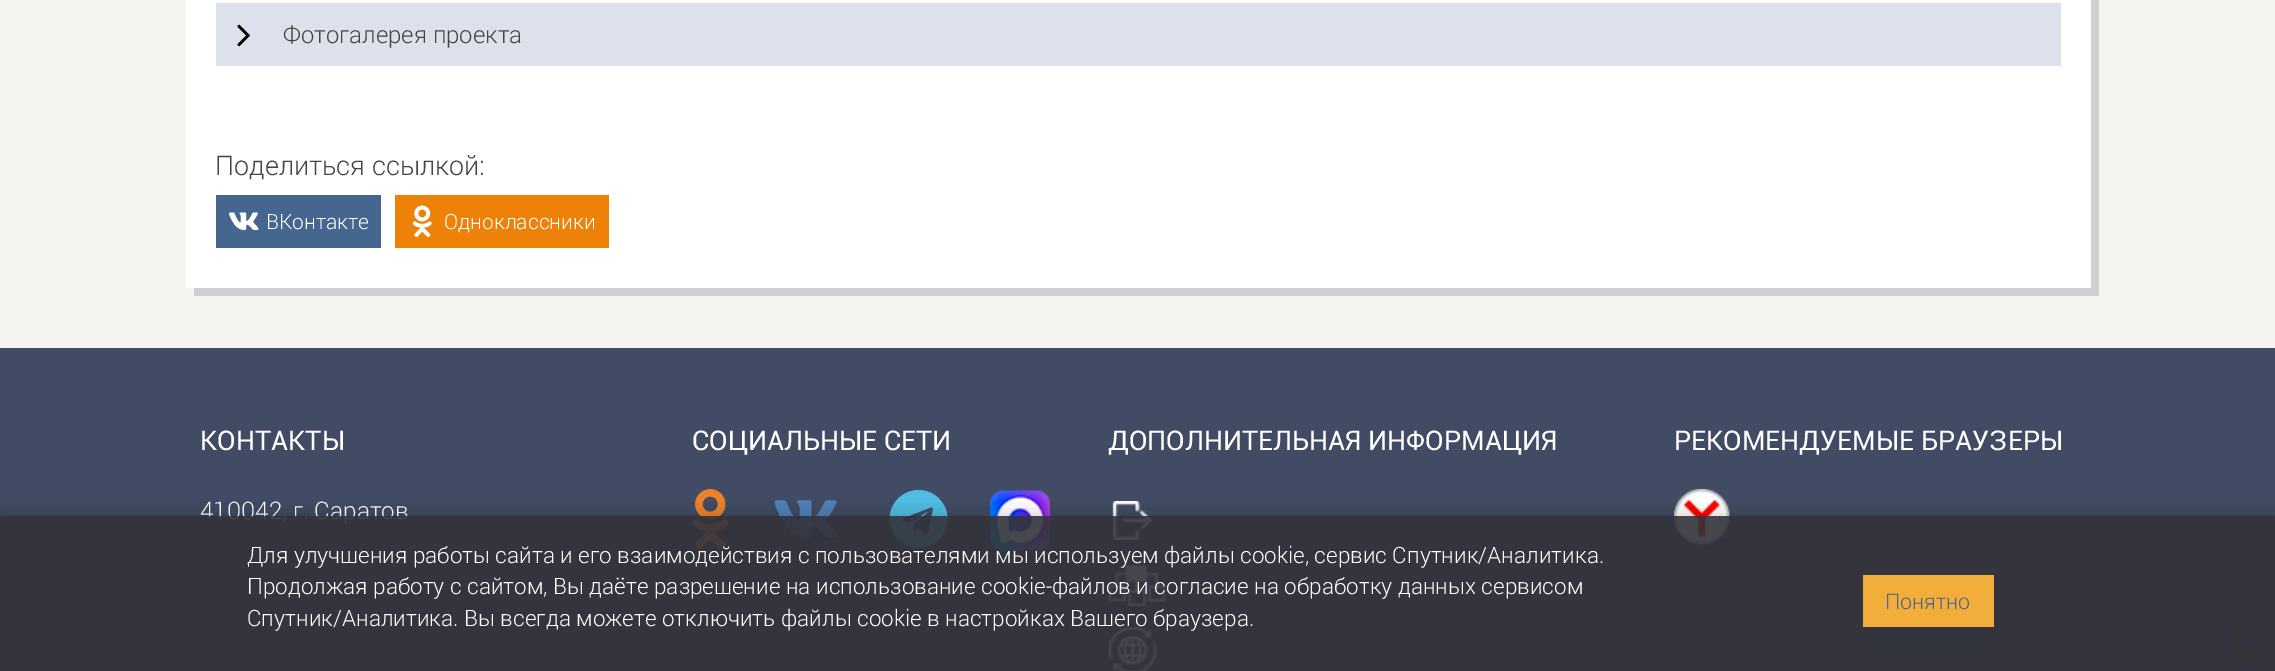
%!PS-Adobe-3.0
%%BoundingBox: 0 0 2275 671
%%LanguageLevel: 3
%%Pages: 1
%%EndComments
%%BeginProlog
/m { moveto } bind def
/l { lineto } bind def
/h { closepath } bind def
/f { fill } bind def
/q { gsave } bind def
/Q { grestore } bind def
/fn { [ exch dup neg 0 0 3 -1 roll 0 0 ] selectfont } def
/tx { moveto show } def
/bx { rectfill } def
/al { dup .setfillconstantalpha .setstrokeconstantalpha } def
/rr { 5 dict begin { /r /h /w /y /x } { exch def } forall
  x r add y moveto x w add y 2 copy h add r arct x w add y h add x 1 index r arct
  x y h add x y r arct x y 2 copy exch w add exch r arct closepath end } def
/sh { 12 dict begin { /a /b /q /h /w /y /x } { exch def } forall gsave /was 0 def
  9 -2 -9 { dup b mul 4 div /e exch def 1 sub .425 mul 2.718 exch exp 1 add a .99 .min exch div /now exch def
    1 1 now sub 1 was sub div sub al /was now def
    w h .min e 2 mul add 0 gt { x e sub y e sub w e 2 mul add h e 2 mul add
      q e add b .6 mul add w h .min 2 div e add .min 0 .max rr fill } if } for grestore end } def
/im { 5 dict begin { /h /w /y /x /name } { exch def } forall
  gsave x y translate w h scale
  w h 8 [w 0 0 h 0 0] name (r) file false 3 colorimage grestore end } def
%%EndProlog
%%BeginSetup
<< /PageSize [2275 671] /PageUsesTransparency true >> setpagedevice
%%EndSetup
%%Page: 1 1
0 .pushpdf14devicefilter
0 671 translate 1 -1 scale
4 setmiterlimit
0.961 0.957 0.941 setrgbcolor
0 0 2275 671 bx
0.812 setgray
194 288 m 194 296 l 2099 296 l 2099 -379 l 2091 -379 l 2091 288 l h f
1 setgray
186 0 1905 288 bx
0.867 0.882 0.922 setrgbcolor
216 3 1845 63 bx
(image0.raw) 237 24 13 23 im
/Roboto-Light 24 fn
0.267 setgray
(Фотогалерея проекта) 283 43 tx
/Roboto-Light 27 fn
(Поделиться ссылкой:) 215 175 tx
0.271 0.4 0.557 setrgbcolor
216 195 165 53 bx
(image1.raw) 229 212 30 18 im
/Roboto-Light 21 fn
1 setgray
(ВКонтакте) 266 229 tx
0.933 0.51 0.031 setrgbcolor
395 195 214 53 bx
(image2.raw) 412 205 20 32 im
1 setgray
(Одноклассники) 444 229 tx
0.255 0.294 0.388 setrgbcolor
0 348 2275 323 bx
/Roboto-Regular 27.1 fn
1 setgray
(КОНТАКТЫ) 200 450 tx
/Roboto-Light 24.25 fn
(410042, г. Саратов) 200 519 tx
/Roboto-Regular 27.1 fn
(СОЦИАЛЬНЫЕ СЕТИ) 692 450 tx
(image3.raw) 692 489 37 60 im
(image4.raw) 774 500 64 38 im
(image5.raw) 889 489 59 60 im
(image6.raw) 990 490 60 61 im
(ДОПОЛНИТЕЛЬНАЯ ИНФОРМАЦИЯ) 1108 450 tx
(image7.raw) 1112 501 41 39 im
(image8.raw) 1108 565 58 41 im
(image9.raw) 1108 627 49 44 im
(РЕКОМЕНДУЕМЫЕ БРАУЗЕРЫ) 1674 450 tx
(image10.raw) 1674 489 56 56 im
(image11.raw) 2230 623 39 39 im
q
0 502 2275 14 rectclip
0 setgray
0 516 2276 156 0 11 0.2 sh
Q
0.9 al
0.196 0.196 0.227 setrgbcolor
0 516 2275 155 bx
/Roboto-Light 22.5 fn
1 al
1 setgray
(Для улучшения работы сайта и его взаимодействия с пользователями мы используем файлы cookie, сервис Спутник/Аналитика.) 247 563 tx
(Продолжая работу с сайтом, Вы даёте разрешение на использование cookie-файлов и согласие на обработку данных сервисом) 247 594 tx
(Спутник/Аналитика. Вы всегда можете отключить файлы cookie в настройках Вашего браузера.) 247 626 tx
0.945 0.682 0.227 setrgbcolor
1863 575 131 52 bx
/Roboto-Light 21.5 fn
0.306 0.38 0.565 setrgbcolor
(Понятно) 1885 609 tx
.poppdf14devicefilter showpage
%%EOF
